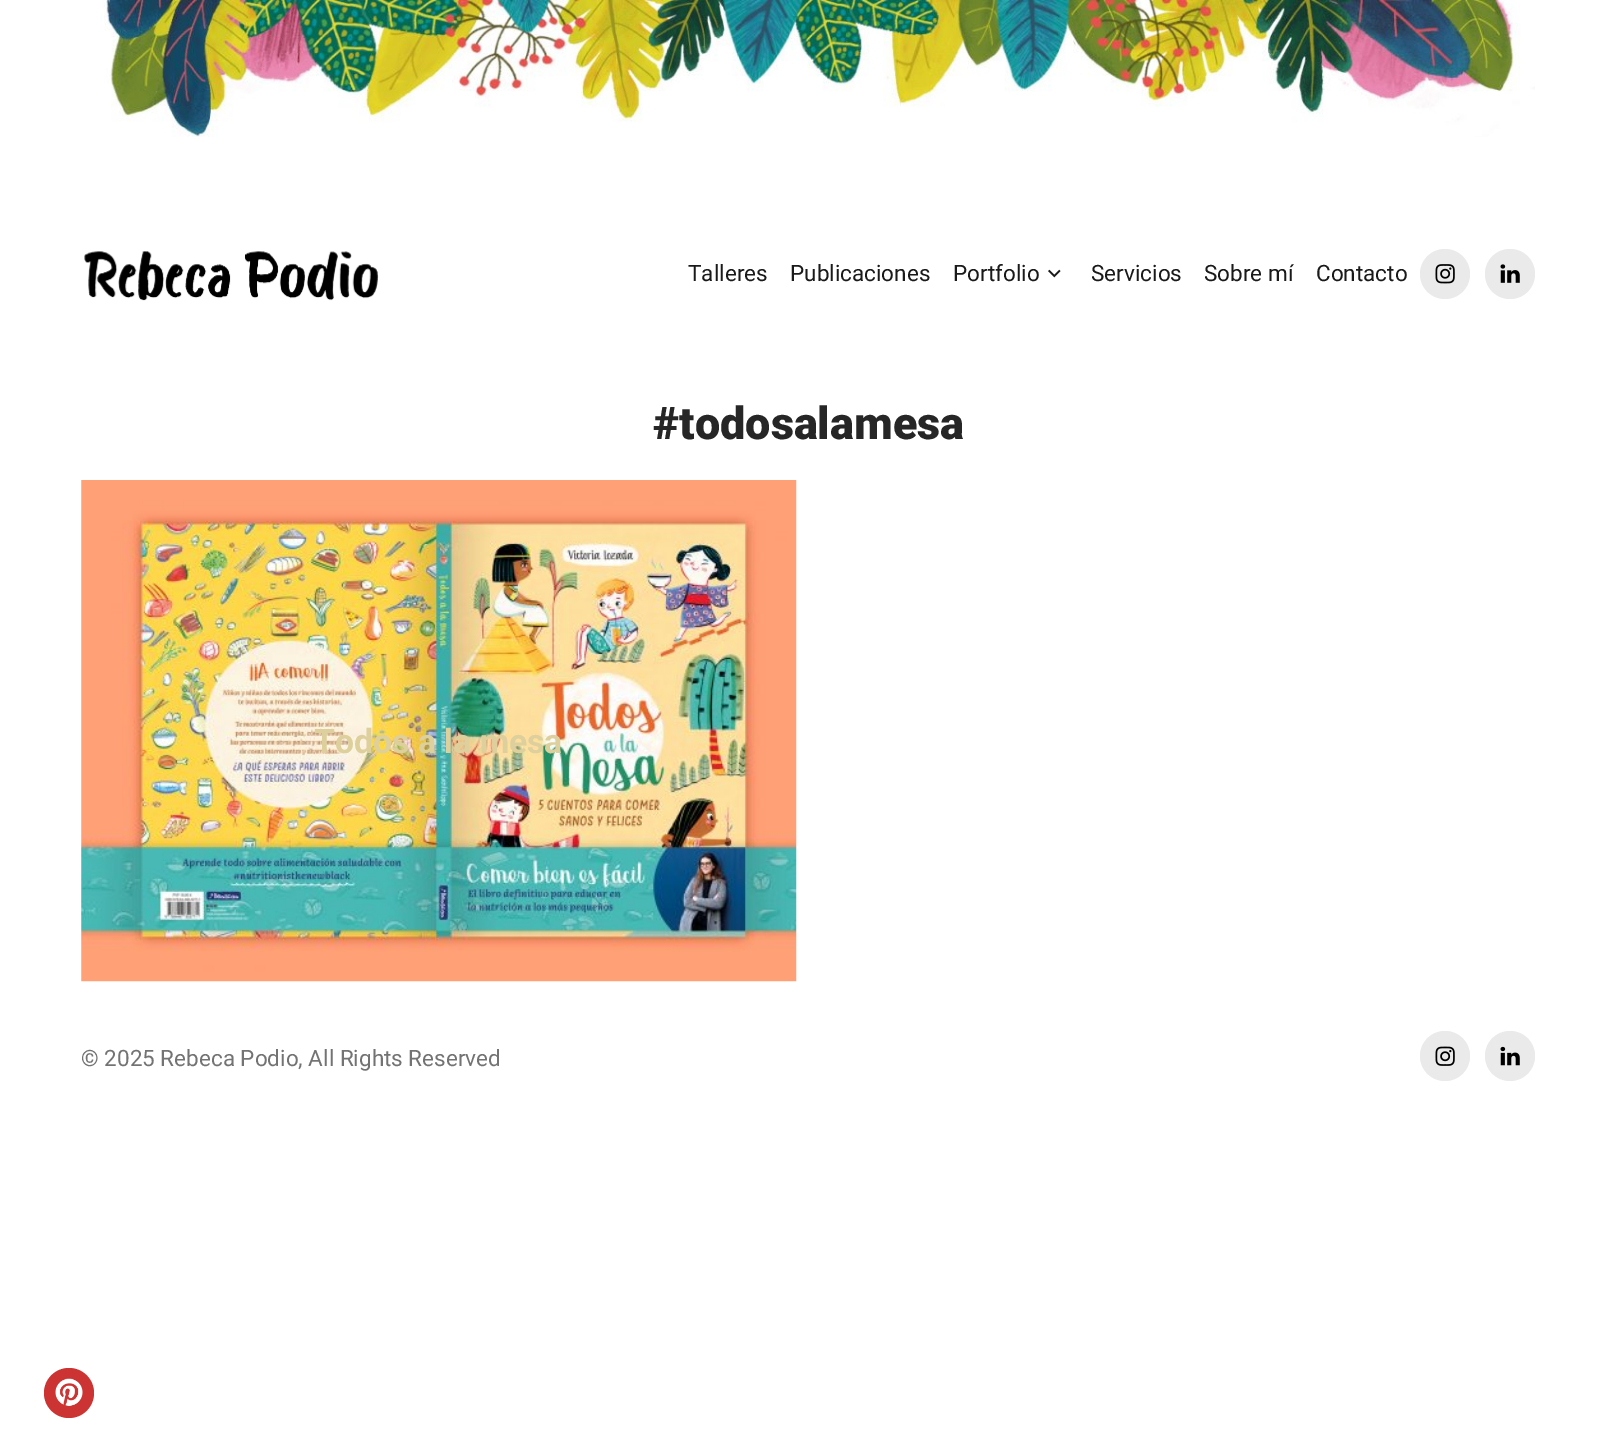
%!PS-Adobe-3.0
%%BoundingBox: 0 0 1616 1430
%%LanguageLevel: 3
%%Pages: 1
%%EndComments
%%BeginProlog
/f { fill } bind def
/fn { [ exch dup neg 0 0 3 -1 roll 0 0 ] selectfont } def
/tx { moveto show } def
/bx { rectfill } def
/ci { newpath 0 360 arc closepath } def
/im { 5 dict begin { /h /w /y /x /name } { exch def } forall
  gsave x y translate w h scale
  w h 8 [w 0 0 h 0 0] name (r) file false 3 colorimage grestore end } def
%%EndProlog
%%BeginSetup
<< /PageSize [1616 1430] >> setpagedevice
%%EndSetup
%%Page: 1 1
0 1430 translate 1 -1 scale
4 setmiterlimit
1 setgray
0 0 1616 1430 bx
(image0.raw) 100 0 1435 137 im
(image1.raw) 84 251 295 50 im
/Roboto-Regular 22.5 fn
0.102 setgray
(Talleres) 688 281 tx
(Publicaciones) 790 281 tx
(Portfolio) 953 281 tx
(image2.raw) 1048 269 13 9 im
(Servicios) 1091 281 tx
(Sobre mí) 1204 281 tx
(Contacto) 1316 281 tx
0.918 setgray
1445 274 25 ci f
(image3.raw) 1435 264 20 20 im
1510 274 25 ci f
(image4.raw) 1500 264 20 19 im
/Roboto-Black 45 fn
0.149 setgray
(#todosalamesa) 653 439 tx
(image5.raw) 81 480 716 502 im
/Roboto-Bold 33.75 fn
0.871 0.816 0.616 setrgbcolor
(Todos a la mesa) 314 753 tx
/Roboto-Regular 22.5 fn
0.451 setgray
(© 2025 Rebeca Podio, All Rights Reserved) 81 1066 tx
0.918 setgray
1445 1056 25 ci f
(image6.raw) 1435 1046 20 20 im
1510 1056 25 ci f
(image7.raw) 1500 1046 20 20 im
0.8 0.2 0.2 setrgbcolor
69 1393 25 ci f
(image8.raw) 55 1378 28 28 im
showpage
%%EOF
